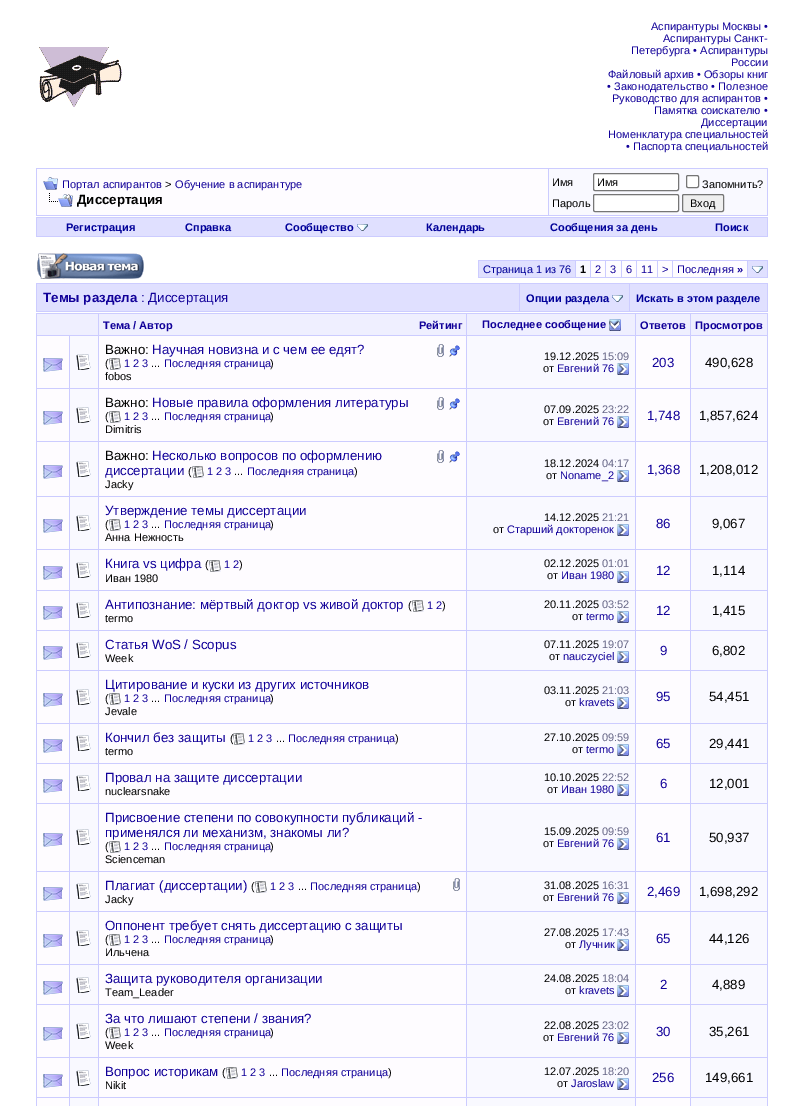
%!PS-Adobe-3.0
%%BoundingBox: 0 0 804 1106
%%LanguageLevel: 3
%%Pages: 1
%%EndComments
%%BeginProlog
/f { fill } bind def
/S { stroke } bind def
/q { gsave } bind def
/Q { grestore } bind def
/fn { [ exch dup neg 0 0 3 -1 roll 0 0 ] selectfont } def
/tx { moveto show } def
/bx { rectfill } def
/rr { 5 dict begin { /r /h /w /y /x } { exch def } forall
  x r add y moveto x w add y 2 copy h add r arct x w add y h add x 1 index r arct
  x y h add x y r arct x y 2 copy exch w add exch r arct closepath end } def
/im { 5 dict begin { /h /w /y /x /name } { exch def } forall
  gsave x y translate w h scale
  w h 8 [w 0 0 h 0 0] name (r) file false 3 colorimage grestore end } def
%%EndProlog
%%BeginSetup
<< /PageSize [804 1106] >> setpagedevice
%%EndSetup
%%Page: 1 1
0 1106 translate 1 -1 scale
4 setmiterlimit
1 setgray
0 0 804 1106 bx
(image0.raw) 39 47 83 60 im
/LiberationSans-Regular 11 fn
0.067 0 0.6 setrgbcolor
(Аспирантуры Москвы •) 651 30 tx
(Аспирантуры Санкт-) 663 42 tx
(Петербурга • Аспирантуры) 631 54 tx
(России) 731 66 tx
(Файловый архив • Обзоры книг) 608 78 tx
(• Законодательство • Полезное) 607 90 tx
(Руководство для аспирантов •) 612 102 tx
(Памятка соискателю •) 654 114 tx
(Диссертации) 701 126 tx
(Номенклатура специальностей) 608 138 tx
(• Паспорта специальностей) 626 150 tx
0.8 0.8 1 setrgbcolor
36 168 732 48 bx
0.996 0.988 1 setrgbcolor
37 169 511 46 bx
(image1.raw) 43 177 15 13 im
0.067 0 0.6 setrgbcolor
(Портал аспирантов) 62 188 tx
0 setgray
(>) 165 188 tx
0.067 0 0.6 setrgbcolor
(Обучение в аспирантуре) 175 188 tx
(image2.raw) 49 193 24 14 im
/LiberationSans-Bold 13.3 fn
0 setgray
(Диссертация) 77 204 tx
0.976 0.976 1 setrgbcolor
549 169 218 46 bx
/LiberationSans-Regular 11 fn
0 setgray
(Имя) 552 186 tx
1 setgray
593.5 173.5 85 17 1.5 rr q f Q
0.463 setgray
S
0 setgray
(Имя) 597 186 tx
1 setgray
686.5 175.5 12 12 1.5 rr q f Q
0.463 setgray
S
0 setgray
(Запомнить?) 702 188 tx
(Пароль) 552 207 tx
1 setgray
593.5 194.5 85 17 1.5 rr q f Q
0.463 setgray
S
0.937 setgray
682.5 194.5 41 17 1.5 rr q f Q
0.463 setgray
S
0 setgray
(Вход) 690 207 tx
0.8 0.8 1 setrgbcolor
36 217 732 20 bx
0.878 0.878 1 setrgbcolor
37 218 730 18 bx
/LiberationSans-Bold 11 fn
0 0 0.6 setrgbcolor
(Регистрация) 66 231 tx
(Справка) 185 231 tx
(Сообщество) 285 231 tx
(image3.raw) 357 224 11 7 im
(Календарь) 426 231 tx
(Сообщения за день) 550 231 tx
(Поиск) 715 231 tx
(image4.raw) 37 253 107 26 im
0.8 0.8 1 setrgbcolor
478 260 290 18 bx
0.878 0.878 1 setrgbcolor
479 261 96 16 bx
/LiberationSans-Regular 11 fn
0 0 0.6 setrgbcolor
(Страница 1 из 76) 483 273 tx
0.976 0.976 1 setrgbcolor
576 261 14 16 bx
/LiberationSans-Bold 11 fn
0 setgray
(1) 580 273 tx
0.996 0.988 1 setrgbcolor
591 261 14 16 bx
/LiberationSans-Regular 11 fn
0.067 0 0.6 setrgbcolor
(2) 595 273 tx
0.996 0.988 1 setrgbcolor
606 261 15 16 bx
0.067 0 0.6 setrgbcolor
(3) 610 273 tx
0.996 0.988 1 setrgbcolor
622 261 14 16 bx
0.067 0 0.6 setrgbcolor
(6) 626 273 tx
0.996 0.988 1 setrgbcolor
637 261 20 16 bx
0.067 0 0.6 setrgbcolor
(11) 641 273 tx
0.996 0.988 1 setrgbcolor
658 261 14 16 bx
0.067 0 0.6 setrgbcolor
(>) 662 273 tx
0.996 0.988 1 setrgbcolor
673 261 74 16 bx
0.067 0 0.6 setrgbcolor
(Последняя) 677 273 tx
/LiberationSans-Bold 11 fn
(») 737 273 tx
0.878 0.878 1 setrgbcolor
748 261 19 16 bx
(image3.raw) 752 266 11 7 im
0.8 0.8 1 setrgbcolor
36 283 732 29 bx
0.878 0.878 1 setrgbcolor
37 284 482 27 bx
/LiberationSans-Bold 13.3 fn
0.067 0 0.6 setrgbcolor
(Темы раздела) 43 302 tx
/LiberationSans-Regular 13.3 fn
(: Диссертация) 141 302 tx
0.878 0.878 1 setrgbcolor
520 284 109 27 bx
/LiberationSans-Bold 11 fn
0 0 0.6 setrgbcolor
(Опции раздела) 526 302 tx
(image3.raw) 612 295 11 7 im
0.878 0.878 1 setrgbcolor
630 284 137 27 bx
0 0 0.6 setrgbcolor
(Искать в этом разделе) 636 302 tx
0.8 0.8 1 setrgbcolor
36 313 732 793 bx
0.937 0.937 1 setrgbcolor
37 314 61 21 bx
99 314 367 21 bx
0.067 0 0.6 setrgbcolor
(Тема / Автор) 103 329 tx
(Рейтинг) 419 329 tx
0.937 0.937 1 setrgbcolor
467 314 168 21 bx
0.067 0 0.6 setrgbcolor
(Последнее сообщение) 482 328 tx
(image5.raw) 609 319 12 12 im
0.937 0.937 1 setrgbcolor
636 314 54 21 bx
0.067 0 0.6 setrgbcolor
(Ответов) 640 329 tx
0.937 0.937 1 setrgbcolor
691 314 76 21 bx
0.067 0 0.6 setrgbcolor
(Просмотров) 695 329 tx
0.996 0.988 1 setrgbcolor
37 336 32 52 bx
(image6.raw) 43 358 20 14 im
0.976 0.976 1 setrgbcolor
70 336 28 52 bx
(image7.raw) 76 354 15 16 im
0.996 0.988 1 setrgbcolor
99 336 367 52 bx
/LiberationSans-Regular 13.3 fn
0 setgray
(Важно:) 105 354 tx
0.067 0 0.6 setrgbcolor
(Научная новизна и с чем ее едят?) 152 354 tx
(image8.raw) 437 344 7 13 im
(image9.raw) 449 345 11 12 im
/LiberationSans-Regular 11 fn
0 setgray
(\() 105 367 tx
(image10.raw) 109 358 12 12 im
0.067 0 0.6 setrgbcolor
(1 2 3) 124 367 tx
0 setgray
(...) 151 367 tx
0.067 0 0.6 setrgbcolor
(Последняя страница) 164 367 tx
0 setgray
(\)) 270 367 tx
(fobos) 105 380 tx
0.976 0.976 1 setrgbcolor
467 336 168 52 bx
0 setgray
(19.12.2025) 544 360 tx
0.4 0.4 0.525 setrgbcolor
(15:09) 602 360 tx
0 setgray
(от) 543 372 tx
0.067 0 0.6 setrgbcolor
(Евгений 76) 557 372 tx
(image11.raw) 617 363 12 12 im
0.996 0.988 1 setrgbcolor
636 336 54 52 bx
/LiberationSans-Regular 13.3 fn
0.067 0 0.6 setrgbcolor
(203) 652 367 tx
0.976 0.976 1 setrgbcolor
691 336 76 52 bx
0 setgray
(490,628) 705 367 tx
0.996 0.988 1 setrgbcolor
37 389 32 52 bx
(image6.raw) 43 411 20 14 im
0.976 0.976 1 setrgbcolor
70 389 28 52 bx
(image7.raw) 76 407 15 16 im
0.996 0.988 1 setrgbcolor
99 389 367 52 bx
0 setgray
(Важно:) 105 407 tx
0.067 0 0.6 setrgbcolor
(Новые правила оформления литературы) 152 407 tx
(image8.raw) 437 397 7 13 im
(image9.raw) 449 398 11 12 im
/LiberationSans-Regular 11 fn
0 setgray
(\() 105 420 tx
(image10.raw) 109 411 12 12 im
0.067 0 0.6 setrgbcolor
(1 2 3) 124 420 tx
0 setgray
(...) 151 420 tx
0.067 0 0.6 setrgbcolor
(Последняя страница) 164 420 tx
0 setgray
(\)) 270 420 tx
(Dimitris) 105 433 tx
0.976 0.976 1 setrgbcolor
467 389 168 52 bx
0 setgray
(07.09.2025) 544 413 tx
0.4 0.4 0.525 setrgbcolor
(23:22) 602 413 tx
0 setgray
(от) 543 425 tx
0.067 0 0.6 setrgbcolor
(Евгений 76) 557 425 tx
(image11.raw) 617 416 12 12 im
0.996 0.988 1 setrgbcolor
636 389 54 52 bx
/LiberationSans-Regular 13.3 fn
0.067 0 0.6 setrgbcolor
(1,748) 647 420 tx
0.976 0.976 1 setrgbcolor
691 389 76 52 bx
0 setgray
(1,857,624) 699 420 tx
0.996 0.988 1 setrgbcolor
37 442 32 54 bx
(image6.raw) 43 465 20 14 im
0.976 0.976 1 setrgbcolor
70 442 28 54 bx
(image7.raw) 76 461 15 16 im
0.996 0.988 1 setrgbcolor
99 442 367 54 bx
0 setgray
(Важно:) 105 460 tx
0.067 0 0.6 setrgbcolor
(Несколько вопросов по оформлению) 152 460 tx
(image8.raw) 437 450 7 13 im
(image9.raw) 449 451 11 12 im
(диссертации) 105 475 tx
/LiberationSans-Regular 11 fn
0 setgray
(\() 188 475 tx
(image10.raw) 192 466 12 12 im
0.067 0 0.6 setrgbcolor
(1 2 3) 207 475 tx
0 setgray
(...) 234 475 tx
0.067 0 0.6 setrgbcolor
(Последняя страница) 247 475 tx
0 setgray
(\)) 354 475 tx
(Jacky) 105 488 tx
0.976 0.976 1 setrgbcolor
467 442 168 54 bx
0 setgray
(18.12.2024) 544 467 tx
0.4 0.4 0.525 setrgbcolor
(04:17) 602 467 tx
0 setgray
(от) 546 479 tx
0.067 0 0.6 setrgbcolor
(Noname_2) 560 479 tx
(image11.raw) 617 470 12 12 im
0.996 0.988 1 setrgbcolor
636 442 54 54 bx
/LiberationSans-Regular 13.3 fn
0.067 0 0.6 setrgbcolor
(1,368) 647 474 tx
0.976 0.976 1 setrgbcolor
691 442 76 54 bx
0 setgray
(1,208,012) 699 474 tx
0.996 0.988 1 setrgbcolor
37 497 32 52 bx
(image6.raw) 43 519 20 14 im
0.976 0.976 1 setrgbcolor
70 497 28 52 bx
(image7.raw) 76 515 15 16 im
0.996 0.988 1 setrgbcolor
99 497 367 52 bx
0.067 0 0.6 setrgbcolor
(Утверждение темы диссертации) 105 515 tx
/LiberationSans-Regular 11 fn
0 setgray
(\() 105 528 tx
(image10.raw) 109 519 12 12 im
0.067 0 0.6 setrgbcolor
(1 2 3) 124 528 tx
0 setgray
(...) 151 528 tx
0.067 0 0.6 setrgbcolor
(Последняя страница) 164 528 tx
0 setgray
(\)) 270 528 tx
(Анна Нежность) 105 541 tx
0.976 0.976 1 setrgbcolor
467 497 168 52 bx
0 setgray
(14.12.2025) 544 521 tx
0.4 0.4 0.525 setrgbcolor
(21:21) 602 521 tx
0 setgray
(от) 493 533 tx
0.067 0 0.6 setrgbcolor
(Старший докторенок) 507 533 tx
(image11.raw) 617 524 12 12 im
0.996 0.988 1 setrgbcolor
636 497 54 52 bx
/LiberationSans-Regular 13.3 fn
0.067 0 0.6 setrgbcolor
(86) 656 528 tx
0.976 0.976 1 setrgbcolor
691 497 76 52 bx
0 setgray
(9,067) 712 528 tx
0.996 0.988 1 setrgbcolor
37 550 32 40 bx
(image6.raw) 43 566 20 14 im
0.976 0.976 1 setrgbcolor
70 550 28 40 bx
(image7.raw) 76 562 15 16 im
0.996 0.988 1 setrgbcolor
99 550 367 40 bx
0.067 0 0.6 setrgbcolor
(Книга vs цифра) 105 568 tx
/LiberationSans-Regular 11 fn
0 setgray
(\() 205 568 tx
(image10.raw) 209 560 12 12 im
0.067 0 0.6 setrgbcolor
(1 2) 224 568 tx
0 setgray
(\)) 239 568 tx
(Иван 1980) 105 582 tx
0.976 0.976 1 setrgbcolor
467 550 168 40 bx
0 setgray
(02.12.2025) 544 567 tx
0.4 0.4 0.525 setrgbcolor
(01:01) 602 567 tx
0 setgray
(от) 547 579 tx
0.067 0 0.6 setrgbcolor
(Иван 1980) 561 579 tx
(image11.raw) 617 571 12 12 im
0.996 0.988 1 setrgbcolor
636 550 54 40 bx
/LiberationSans-Regular 13.3 fn
0.067 0 0.6 setrgbcolor
(12) 656 575 tx
0.976 0.976 1 setrgbcolor
691 550 76 40 bx
0 setgray
(1,114) 712 575 tx
0.996 0.988 1 setrgbcolor
37 591 32 39 bx
(image6.raw) 43 606 20 14 im
0.976 0.976 1 setrgbcolor
70 591 28 39 bx
(image7.raw) 76 602 15 16 im
0.996 0.988 1 setrgbcolor
99 591 367 39 bx
0.067 0 0.6 setrgbcolor
(Антипознание: мёртвый доктор vs живой доктор) 105 609 tx
/LiberationSans-Regular 11 fn
0 setgray
(\() 408 609 tx
(image10.raw) 412 600 12 12 im
0.067 0 0.6 setrgbcolor
(1 2) 427 609 tx
0 setgray
(\)) 442 609 tx
(termo) 105 622 tx
0.976 0.976 1 setrgbcolor
467 591 168 39 bx
0 setgray
(20.11.2025) 544 608 tx
0.4 0.4 0.525 setrgbcolor
(03:52) 602 608 tx
0 setgray
(от) 572 620 tx
0.067 0 0.6 setrgbcolor
(termo) 586 620 tx
(image11.raw) 617 611 12 12 im
0.996 0.988 1 setrgbcolor
636 591 54 39 bx
/LiberationSans-Regular 13.3 fn
0.067 0 0.6 setrgbcolor
(12) 656 615 tx
0.976 0.976 1 setrgbcolor
691 591 76 39 bx
0 setgray
(1,415) 712 615 tx
0.996 0.988 1 setrgbcolor
37 631 32 39 bx
(image6.raw) 43 646 20 14 im
0.976 0.976 1 setrgbcolor
70 631 28 39 bx
(image7.raw) 76 642 15 16 im
0.996 0.988 1 setrgbcolor
99 631 367 39 bx
0.067 0 0.6 setrgbcolor
(Статья WoS / Scopus) 105 649 tx
/LiberationSans-Regular 11 fn
0 setgray
(Week) 105 662 tx
0.976 0.976 1 setrgbcolor
467 631 168 39 bx
0 setgray
(07.11.2025) 544 648 tx
0.4 0.4 0.525 setrgbcolor
(19:07) 602 648 tx
0 setgray
(от) 549 660 tx
0.067 0 0.6 setrgbcolor
(nauczyciel) 563 660 tx
(image11.raw) 617 651 12 12 im
0.996 0.988 1 setrgbcolor
636 631 54 39 bx
/LiberationSans-Regular 13.3 fn
0.067 0 0.6 setrgbcolor
(9) 660 655 tx
0.976 0.976 1 setrgbcolor
691 631 76 39 bx
0 setgray
(6,802) 712 655 tx
0.996 0.988 1 setrgbcolor
37 671 32 52 bx
(image6.raw) 43 693 20 14 im
0.976 0.976 1 setrgbcolor
70 671 28 52 bx
(image7.raw) 76 689 15 16 im
0.996 0.988 1 setrgbcolor
99 671 367 52 bx
0.067 0 0.6 setrgbcolor
(Цитирование и куски из других источников) 105 689 tx
/LiberationSans-Regular 11 fn
0 setgray
(\() 105 702 tx
(image10.raw) 109 693 12 12 im
0.067 0 0.6 setrgbcolor
(1 2 3) 124 702 tx
0 setgray
(...) 151 702 tx
0.067 0 0.6 setrgbcolor
(Последняя страница) 164 702 tx
0 setgray
(\)) 270 702 tx
(Jevale) 105 715 tx
0.976 0.976 1 setrgbcolor
467 671 168 52 bx
0 setgray
(03.11.2025) 544 694 tx
0.4 0.4 0.525 setrgbcolor
(21:03) 602 694 tx
0 setgray
(от) 565 706 tx
0.067 0 0.6 setrgbcolor
(kravets) 579 706 tx
(image11.raw) 617 697 12 12 im
0.996 0.988 1 setrgbcolor
636 671 54 52 bx
/LiberationSans-Regular 13.3 fn
0.067 0 0.6 setrgbcolor
(95) 656 701 tx
0.976 0.976 1 setrgbcolor
691 671 76 52 bx
0 setgray
(54,451) 709 701 tx
0.996 0.988 1 setrgbcolor
37 724 32 39 bx
(image6.raw) 43 739 20 14 im
0.976 0.976 1 setrgbcolor
70 724 28 39 bx
(image7.raw) 76 735 15 16 im
0.996 0.988 1 setrgbcolor
99 724 367 39 bx
0.067 0 0.6 setrgbcolor
(Кончил без защиты) 105 742 tx
/LiberationSans-Regular 11 fn
0 setgray
(\() 230 742 tx
(image12.raw) 233 733 12 12 im
0.067 0 0.6 setrgbcolor
(1 2 3) 248 742 tx
0 setgray
(...) 276 742 tx
0.067 0 0.6 setrgbcolor
(Последняя страница) 288 742 tx
0 setgray
(\)) 395 742 tx
(termo) 105 755 tx
0.976 0.976 1 setrgbcolor
467 724 168 39 bx
0 setgray
(27.10.2025) 544 741 tx
0.4 0.4 0.525 setrgbcolor
(09:59) 602 741 tx
0 setgray
(от) 572 753 tx
0.067 0 0.6 setrgbcolor
(termo) 586 753 tx
(image11.raw) 617 744 12 12 im
0.996 0.988 1 setrgbcolor
636 724 54 39 bx
/LiberationSans-Regular 13.3 fn
0.067 0 0.6 setrgbcolor
(65) 656 748 tx
0.976 0.976 1 setrgbcolor
691 724 76 39 bx
0 setgray
(29,441) 709 748 tx
0.996 0.988 1 setrgbcolor
37 764 32 39 bx
(image6.raw) 43 779 20 14 im
0.976 0.976 1 setrgbcolor
70 764 28 39 bx
(image7.raw) 76 775 15 16 im
0.996 0.988 1 setrgbcolor
99 764 367 39 bx
0.067 0 0.6 setrgbcolor
(Провал на защите диссертации) 105 782 tx
/LiberationSans-Regular 11 fn
0 setgray
(nuclearsnake) 105 795 tx
0.976 0.976 1 setrgbcolor
467 764 168 39 bx
0 setgray
(10.10.2025) 544 781 tx
0.4 0.4 0.525 setrgbcolor
(22:52) 602 781 tx
0 setgray
(от) 547 793 tx
0.067 0 0.6 setrgbcolor
(Иван 1980) 561 793 tx
(image11.raw) 617 784 12 12 im
0.996 0.988 1 setrgbcolor
636 764 54 39 bx
/LiberationSans-Regular 13.3 fn
0.067 0 0.6 setrgbcolor
(6) 660 788 tx
0.976 0.976 1 setrgbcolor
691 764 76 39 bx
0 setgray
(12,001) 709 788 tx
0.996 0.988 1 setrgbcolor
37 804 32 67 bx
(image6.raw) 43 833 20 14 im
0.976 0.976 1 setrgbcolor
70 804 28 67 bx
(image7.raw) 76 829 15 16 im
0.996 0.988 1 setrgbcolor
99 804 367 67 bx
0.067 0 0.6 setrgbcolor
(Присвоение степени по совокупности публикаций -) 105 822 tx
(применялся ли механизм, знакомы ли?) 105 837 tx
/LiberationSans-Regular 11 fn
0 setgray
(\() 105 850 tx
(image10.raw) 109 841 12 12 im
0.067 0 0.6 setrgbcolor
(1 2 3) 124 850 tx
0 setgray
(...) 151 850 tx
0.067 0 0.6 setrgbcolor
(Последняя страница) 164 850 tx
0 setgray
(\)) 270 850 tx
(Scienceman) 105 863 tx
0.976 0.976 1 setrgbcolor
467 804 168 67 bx
0 setgray
(15.09.2025) 544 835 tx
0.4 0.4 0.525 setrgbcolor
(09:59) 602 835 tx
0 setgray
(от) 543 847 tx
0.067 0 0.6 setrgbcolor
(Евгений 76) 557 847 tx
(image11.raw) 617 838 12 12 im
0.996 0.988 1 setrgbcolor
636 804 54 67 bx
/LiberationSans-Regular 13.3 fn
0.067 0 0.6 setrgbcolor
(61) 656 842 tx
0.976 0.976 1 setrgbcolor
691 804 76 67 bx
0 setgray
(50,937) 709 842 tx
0.996 0.988 1 setrgbcolor
37 872 32 39 bx
(image6.raw) 43 887 20 14 im
0.976 0.976 1 setrgbcolor
70 872 28 39 bx
(image7.raw) 76 883 15 16 im
0.996 0.988 1 setrgbcolor
99 872 367 39 bx
0.067 0 0.6 setrgbcolor
(Плагиат \(диссертации\)) 105 890 tx
/LiberationSans-Regular 11 fn
0 setgray
(\() 251 890 tx
(image10.raw) 255 881 12 12 im
0.067 0 0.6 setrgbcolor
(1 2 3) 270 890 tx
0 setgray
(...) 298 890 tx
0.067 0 0.6 setrgbcolor
(Последняя страница) 310 890 tx
0 setgray
(\)) 417 890 tx
(image8.raw) 453 878 7 13 im
(Jacky) 105 903 tx
0.976 0.976 1 setrgbcolor
467 872 168 39 bx
0 setgray
(31.08.2025) 544 889 tx
0.4 0.4 0.525 setrgbcolor
(16:31) 602 889 tx
0 setgray
(от) 543 901 tx
0.067 0 0.6 setrgbcolor
(Евгений 76) 557 901 tx
(image11.raw) 617 892 12 12 im
0.996 0.988 1 setrgbcolor
636 872 54 39 bx
/LiberationSans-Regular 13.3 fn
0.067 0 0.6 setrgbcolor
(2,469) 647 896 tx
0.976 0.976 1 setrgbcolor
691 872 76 39 bx
0 setgray
(1,698,292) 699 896 tx
0.996 0.988 1 setrgbcolor
37 912 32 52 bx
(image6.raw) 43 934 20 14 im
0.976 0.976 1 setrgbcolor
70 912 28 52 bx
(image7.raw) 76 930 15 16 im
0.996 0.988 1 setrgbcolor
99 912 367 52 bx
0.067 0 0.6 setrgbcolor
(Оппонент требует снять диссертацию с защиты) 105 930 tx
/LiberationSans-Regular 11 fn
0 setgray
(\() 105 943 tx
(image10.raw) 109 934 12 12 im
0.067 0 0.6 setrgbcolor
(1 2 3) 124 943 tx
0 setgray
(...) 151 943 tx
0.067 0 0.6 setrgbcolor
(Последняя страница) 164 943 tx
0 setgray
(\)) 270 943 tx
(Ильчена) 105 956 tx
0.976 0.976 1 setrgbcolor
467 912 168 52 bx
0 setgray
(27.08.2025) 544 936 tx
0.4 0.4 0.525 setrgbcolor
(17:43) 602 936 tx
0 setgray
(от) 565 948 tx
0.067 0 0.6 setrgbcolor
(Лучник) 579 948 tx
(image11.raw) 617 939 12 12 im
0.996 0.988 1 setrgbcolor
636 912 54 52 bx
/LiberationSans-Regular 13.3 fn
0.067 0 0.6 setrgbcolor
(65) 656 943 tx
0.976 0.976 1 setrgbcolor
691 912 76 52 bx
0 setgray
(44,126) 709 943 tx
0.996 0.988 1 setrgbcolor
37 965 32 39 bx
(image6.raw) 43 981 20 14 im
0.976 0.976 1 setrgbcolor
70 965 28 39 bx
(image7.raw) 76 977 15 16 im
0.996 0.988 1 setrgbcolor
99 965 367 39 bx
0.067 0 0.6 setrgbcolor
(Защита руководителя организации) 105 983 tx
/LiberationSans-Regular 11 fn
0 setgray
(Team_Leader) 105 996 tx
0.976 0.976 1 setrgbcolor
467 965 168 39 bx
0 setgray
(24.08.2025) 544 982 tx
0.4 0.4 0.525 setrgbcolor
(18:04) 602 982 tx
0 setgray
(от) 565 994 tx
0.067 0 0.6 setrgbcolor
(kravets) 579 994 tx
(image11.raw) 617 985 12 12 im
0.996 0.988 1 setrgbcolor
636 965 54 39 bx
/LiberationSans-Regular 13.3 fn
0.067 0 0.6 setrgbcolor
(2) 660 989 tx
0.976 0.976 1 setrgbcolor
691 965 76 39 bx
0 setgray
(4,889) 712 989 tx
0.996 0.988 1 setrgbcolor
37 1005 32 52 bx
(image6.raw) 43 1027 20 14 im
0.976 0.976 1 setrgbcolor
70 1005 28 52 bx
(image7.raw) 76 1023 15 16 im
0.996 0.988 1 setrgbcolor
99 1005 367 52 bx
0.067 0 0.6 setrgbcolor
(За что лишают степени / звания?) 105 1023 tx
/LiberationSans-Regular 11 fn
0 setgray
(\() 105 1036 tx
(image10.raw) 109 1027 12 12 im
0.067 0 0.6 setrgbcolor
(1 2 3) 124 1036 tx
0 setgray
(...) 151 1036 tx
0.067 0 0.6 setrgbcolor
(Последняя страница) 164 1036 tx
0 setgray
(\)) 270 1036 tx
(Week) 105 1049 tx
0.976 0.976 1 setrgbcolor
467 1005 168 52 bx
0 setgray
(22.08.2025) 544 1029 tx
0.4 0.4 0.525 setrgbcolor
(23:02) 602 1029 tx
0 setgray
(от) 543 1041 tx
0.067 0 0.6 setrgbcolor
(Евгений 76) 557 1041 tx
(image11.raw) 617 1032 12 12 im
0.996 0.988 1 setrgbcolor
636 1005 54 52 bx
/LiberationSans-Regular 13.3 fn
0.067 0 0.6 setrgbcolor
(30) 656 1036 tx
0.976 0.976 1 setrgbcolor
691 1005 76 52 bx
0 setgray
(35,261) 709 1036 tx
0.996 0.988 1 setrgbcolor
37 1058 32 39 bx
(image6.raw) 43 1074 20 14 im
0.976 0.976 1 setrgbcolor
70 1058 28 39 bx
(image7.raw) 76 1070 15 16 im
0.996 0.988 1 setrgbcolor
99 1058 367 39 bx
0.067 0 0.6 setrgbcolor
(Вопрос историкам) 105 1076 tx
/LiberationSans-Regular 11 fn
0 setgray
(\() 222 1076 tx
(image10.raw) 226 1067 12 12 im
0.067 0 0.6 setrgbcolor
(1 2 3) 241 1076 tx
0 setgray
(...) 269 1076 tx
0.067 0 0.6 setrgbcolor
(Последняя страница) 281 1076 tx
0 setgray
(\)) 388 1076 tx
(Nikit) 105 1089 tx
0.976 0.976 1 setrgbcolor
467 1058 168 39 bx
0 setgray
(12.07.2025) 544 1075 tx
0.4 0.4 0.525 setrgbcolor
(18:20) 602 1075 tx
0 setgray
(от) 557 1087 tx
0.067 0 0.6 setrgbcolor
(Jaroslaw) 571 1087 tx
(image11.raw) 617 1078 12 12 im
0.996 0.988 1 setrgbcolor
636 1058 54 39 bx
/LiberationSans-Regular 13.3 fn
0.067 0 0.6 setrgbcolor
(256) 652 1082 tx
0.976 0.976 1 setrgbcolor
691 1058 76 39 bx
0 setgray
(149,661) 705 1082 tx
0.996 0.988 1 setrgbcolor
37 1098 32 8 bx
0.976 0.976 1 setrgbcolor
70 1098 28 8 bx
0.996 0.988 1 setrgbcolor
99 1098 367 8 bx
0.976 0.976 1 setrgbcolor
467 1098 168 8 bx
0.996 0.988 1 setrgbcolor
636 1098 54 8 bx
0.976 0.976 1 setrgbcolor
691 1098 76 8 bx
showpage
%%EOF
